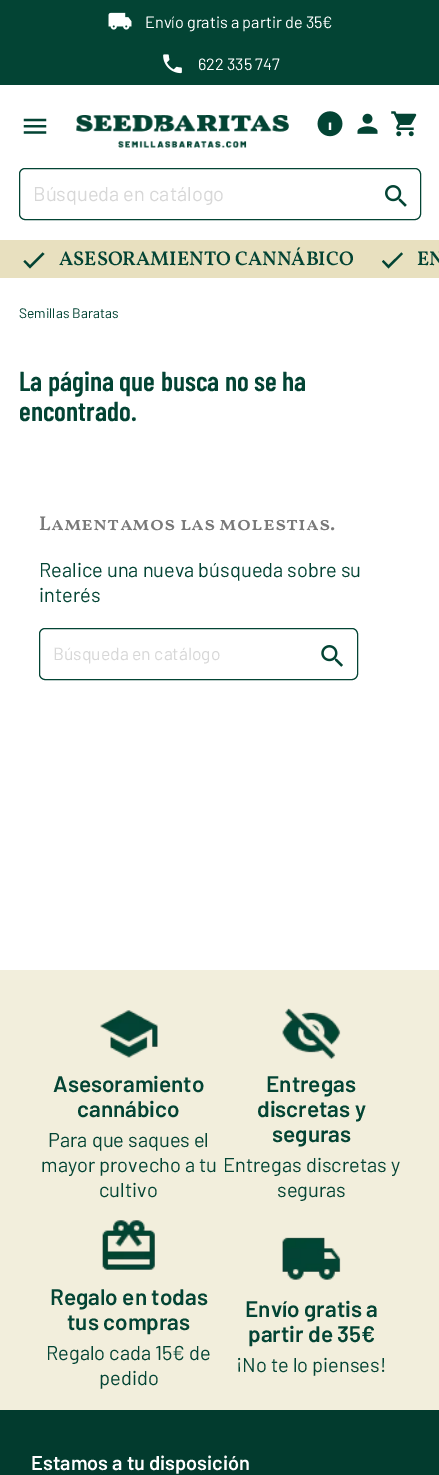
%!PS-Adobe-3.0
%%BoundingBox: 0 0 439 1475
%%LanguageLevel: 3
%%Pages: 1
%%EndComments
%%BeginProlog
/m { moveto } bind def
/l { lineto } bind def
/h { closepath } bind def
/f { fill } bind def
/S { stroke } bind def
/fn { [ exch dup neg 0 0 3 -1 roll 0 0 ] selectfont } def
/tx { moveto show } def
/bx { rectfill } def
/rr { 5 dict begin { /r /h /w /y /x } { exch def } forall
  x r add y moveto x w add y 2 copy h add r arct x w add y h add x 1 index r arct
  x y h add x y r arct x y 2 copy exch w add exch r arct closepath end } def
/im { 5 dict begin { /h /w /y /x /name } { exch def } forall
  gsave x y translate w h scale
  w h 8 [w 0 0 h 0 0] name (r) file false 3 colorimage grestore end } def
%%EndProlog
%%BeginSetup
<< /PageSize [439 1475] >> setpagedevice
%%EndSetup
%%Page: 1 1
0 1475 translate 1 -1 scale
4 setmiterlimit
1 setgray
0 0 439 1475 bx
0.012 0.267 0.204 setrgbcolor
0 0 439 85 bx
(image0.raw) 108 12 24 18 im
/Barlow-Regular 16.25 fn
1 setgray
(Envío gratis a partir de 35€) 145 28 tx
(image1.raw) 163 54 19 20 im
(622 335 747) 198 70 tx
(image2.raw) 23 118 24 16 im
(image3.raw) 76 115 213 33 im
(image4.raw) 317 111 26 26 im
(image5.raw) 357 113 21 21 im
(image6.raw) 391 111 26 26 im
0.012 0.267 0.204 setrgbcolor
19.5 168.5 401 51 5.5 rr S
/Barlow-Regular 20 fn
0.843 setgray
(Búsqueda en catálogo) 33 201 tx
(image7.raw) 385 185 22 22 im
0.91 0.878 0.749 setrgbcolor
0 240 439 38 bx
0.012 0.267 0.204 setrgbcolor
30 265 m 42.5 252.5 l 44.5 254 l 30 268.5 l 23.5 261.5 l 25 260 l h f
/VollkornSC-SemiBold 20 fn
(ASESORAMIENTO CANNÁBICO) 59 265 tx
388.5 265 m 401.5 252.5 l 403 254 l 388.5 268.5 l 382 261.5 l 383.5 260 l h f
(EN) 417 265 tx
/Barlow-Regular 13.75 fn
(Semillas Baratas) 19 318 tx
/BarlowCondensed-SemiBold 27.5 fn
(La página que busca no se ha) 19 391 tx
(encontrado.) 19 421 tx
/VollkornSC-SemiBold 20 fn
0.478 setgray
(Lamentamos las molestias.) 39 530 tx
/Barlow-Regular 20 fn
0.012 0.267 0.204 setrgbcolor
(Realice una nueva búsqueda sobre su) 39 577 tx
(interés) 39 602 tx
39.5 628.5 318 51 5.5 rr S
/Barlow-Regular 17.5 fn
0.843 setgray
(Búsqueda en catálogo) 53 660 tx
(image8.raw) 321 645 22 22 im
0.949 0.933 0.863 setrgbcolor
0 970 439 440 bx
(image9.raw) 100 1010 58 48 im
/Barlow-SemiBold 22.5 fn
0.012 0.267 0.204 setrgbcolor
(Asesoramiento) 53 1092 tx
(cannábico) 77 1117 tx
/Barlow-Regular 20 fn
(Para que saques el) 48 1147 tx
(mayor provecho a tu) 41 1172 tx
(cultivo) 99 1197 tx
(image10.raw) 282 1008 59 51 im
/Barlow-SemiBold 22.5 fn
(Entregas) 266 1092 tx
(discretas y) 257 1117 tx
(seguras) 272 1142 tx
/Barlow-Regular 20 fn
(Entregas discretas y) 223 1172 tx
(seguras) 277 1197 tx
(image11.raw) 102 1220 53 50 im
/Barlow-SemiBold 22.5 fn
(Regalo en todas) 50 1305 tx
(tus compras) 67 1330 tx
/Barlow-Regular 20 fn
(Regalo cada 15€ de) 46 1360 tx
(pedido) 99 1385 tx
(image12.raw) 282 1237 59 43 im
/Barlow-SemiBold 22.5 fn
(Envío gratis a) 245 1317 tx
(partir de 35€) 248 1342 tx
/Barlow-Regular 20 fn
(¡No te lo pienses!) 236 1372 tx
0.008 0.231 0.18 setrgbcolor
0 1410 439 65 bx
/Barlow-SemiBold 20 fn
1 setgray
(Estamos a tu disposición) 31 1470 tx
showpage
%%EOF
